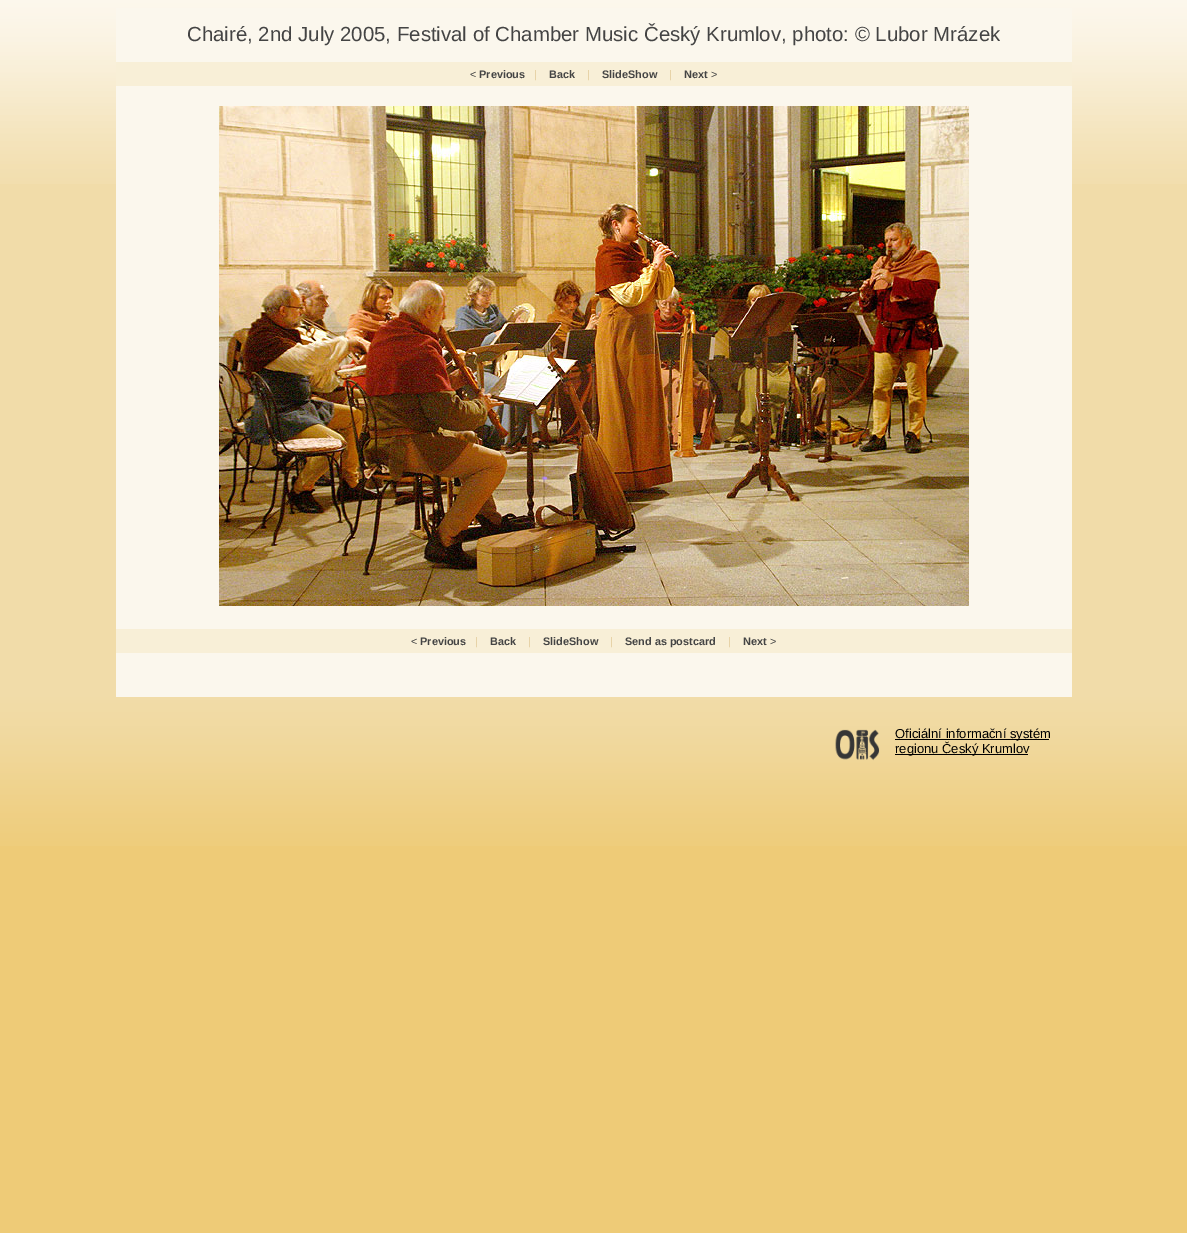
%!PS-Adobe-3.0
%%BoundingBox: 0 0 1187 1233
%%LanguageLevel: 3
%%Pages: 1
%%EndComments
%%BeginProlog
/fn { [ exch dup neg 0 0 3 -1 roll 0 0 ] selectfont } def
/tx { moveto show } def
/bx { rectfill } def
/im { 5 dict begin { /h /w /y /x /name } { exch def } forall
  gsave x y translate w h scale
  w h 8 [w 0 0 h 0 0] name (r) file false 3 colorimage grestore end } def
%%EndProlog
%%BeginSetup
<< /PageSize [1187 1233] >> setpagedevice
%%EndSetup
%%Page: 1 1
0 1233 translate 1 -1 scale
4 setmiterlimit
0.933 0.796 0.467 setrgbcolor
0 0 1187 1233 bx
0.945 0.863 0.663 setrgbcolor
0 184 1187 513 bx
(image0.raw) 0 0 1187 184 im
0.984 0.969 0.929 setrgbcolor
116 8 956 689 bx
/LiberationSans-Regular 20.4 fn
0.267 setgray
(Chairé, 2nd July 2005, Festival of Chamber Music Český Krumlov, photo: © Lubor Mrázek) 187 41 tx
0.973 0.937 0.843 setrgbcolor
116 62 956 24 bx
/LiberationSans-Regular 10.9 fn
0.267 setgray
(<) 470 78 tx
/LiberationSans-Bold 10.9 fn
(Previous) 479 78 tx
/LiberationSans-Regular 10.9 fn
0.882 0.792 0.592 setrgbcolor
(|) 534 78 tx
/LiberationSans-Bold 10.9 fn
0.267 setgray
(Back) 549 78 tx
/LiberationSans-Regular 10.9 fn
0.882 0.792 0.592 setrgbcolor
(|) 587 78 tx
/LiberationSans-Bold 10.9 fn
0.267 setgray
(SlideShow) 602 78 tx
/LiberationSans-Regular 10.9 fn
0.882 0.792 0.592 setrgbcolor
(|) 669 78 tx
/LiberationSans-Bold 10.9 fn
0.267 setgray
(Next) 684 78 tx
/LiberationSans-Regular 10.9 fn
(>) 711 78 tx
(image1.raw) 219 106 750 500 im
0.973 0.937 0.843 setrgbcolor
116 629 956 24 bx
0.267 setgray
(<) 411 645 tx
/LiberationSans-Bold 10.9 fn
(Previous) 420 645 tx
/LiberationSans-Regular 10.9 fn
0.882 0.792 0.592 setrgbcolor
(|) 475 645 tx
/LiberationSans-Bold 10.9 fn
0.267 setgray
(Back) 490 645 tx
/LiberationSans-Regular 10.9 fn
0.882 0.792 0.592 setrgbcolor
(|) 528 645 tx
/LiberationSans-Bold 10.9 fn
0.267 setgray
(SlideShow) 543 645 tx
/LiberationSans-Regular 10.9 fn
0.882 0.792 0.592 setrgbcolor
(|) 610 645 tx
/LiberationSans-Bold 10.9 fn
0.267 setgray
(Send as postcard) 625 645 tx
/LiberationSans-Regular 10.9 fn
0.882 0.792 0.592 setrgbcolor
(|) 728 645 tx
/LiberationSans-Bold 10.9 fn
0.267 setgray
(Next) 743 645 tx
/LiberationSans-Regular 10.9 fn
(>) 770 645 tx
(image2.raw) 0 697 1187 149 im
(image3.raw) 835 729 45 32 im
0 setgray
895 739 154 1 bx
/LiberationSans-Regular 13 fn
(Oficiální informační systém) 895 738 tx
895 754 133 1 bx
(regionu Český Krumlov) 895 753 tx
showpage
%%EOF
